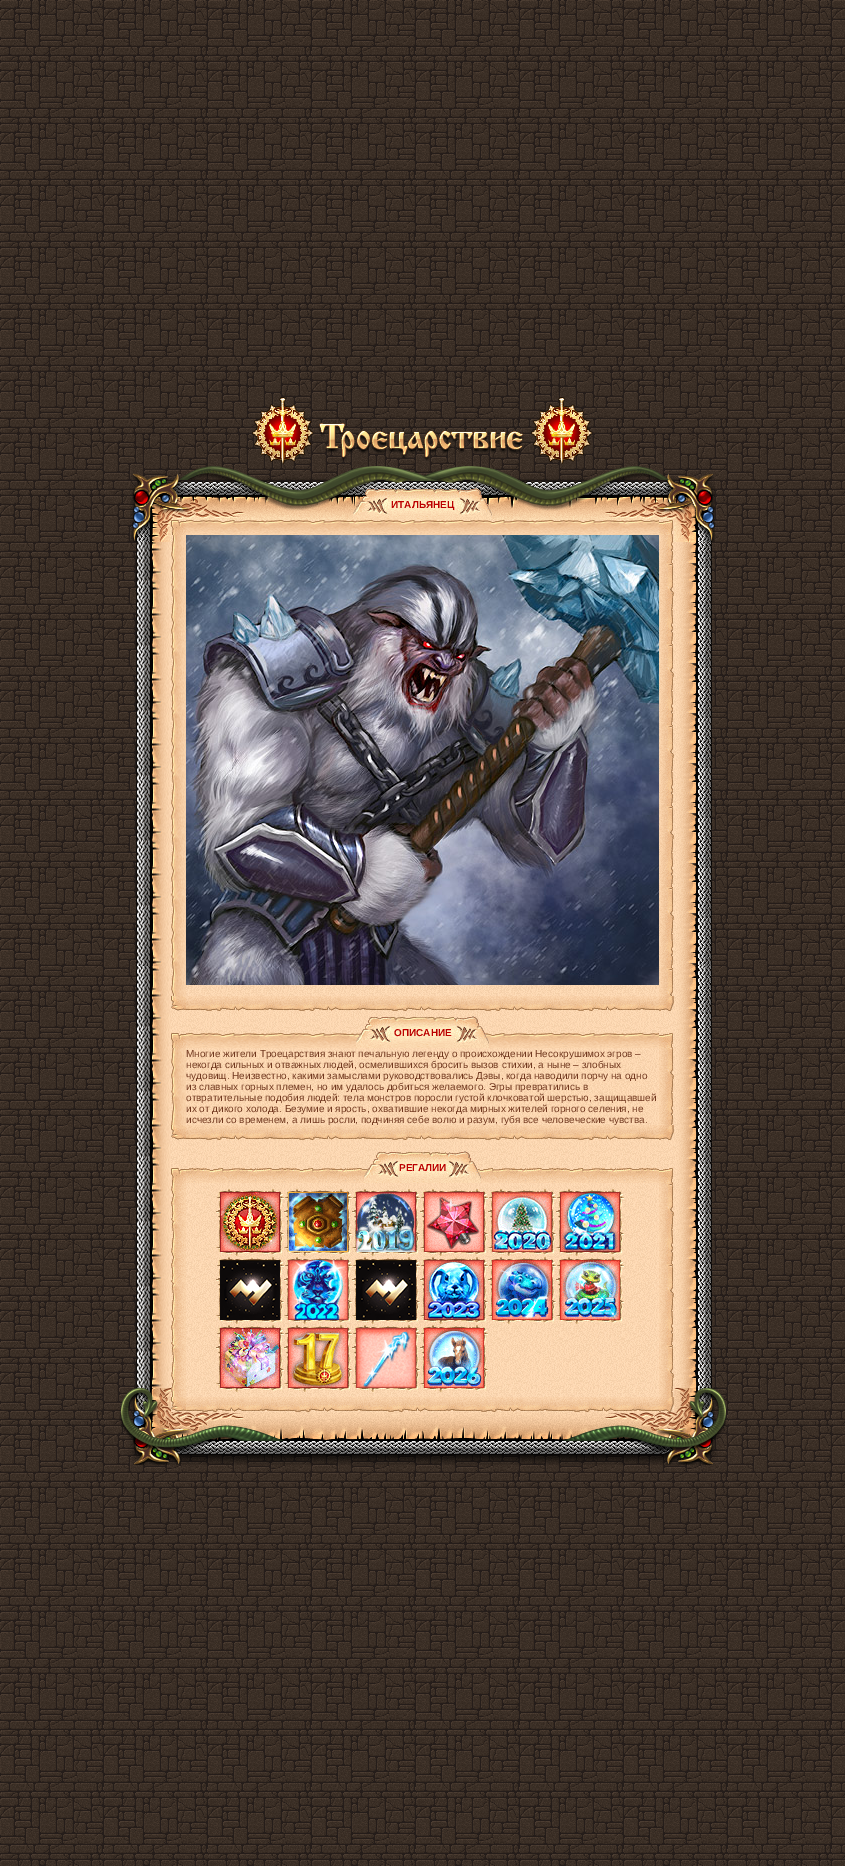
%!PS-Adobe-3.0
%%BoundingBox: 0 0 845 1866
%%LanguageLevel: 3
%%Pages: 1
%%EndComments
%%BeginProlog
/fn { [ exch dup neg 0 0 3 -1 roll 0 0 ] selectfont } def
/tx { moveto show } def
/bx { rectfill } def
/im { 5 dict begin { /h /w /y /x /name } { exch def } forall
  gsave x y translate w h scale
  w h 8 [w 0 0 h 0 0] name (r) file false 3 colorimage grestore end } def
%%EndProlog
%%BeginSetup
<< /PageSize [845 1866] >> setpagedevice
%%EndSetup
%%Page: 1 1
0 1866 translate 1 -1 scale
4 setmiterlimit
1 setgray
0 0 845 1866 bx
(image0.raw) 0 0 845 1866 im
(image1.raw) 252 397 62 67 im
(image2.raw) 318 422 206 39 im
(image3.raw) 531 397 62 67 im
(image4.raw) 130 466 585 54 im
(image5.raw) 353 489 35 31 im
(image6.raw) 388 489 69 31 im
/LiberationSans-Bold 10 fn
0.737 0 0 setrgbcolor
(ИТАЛЬЯНЕЦ) 391 508 tx
(image7.raw) 457 488 35 32 im
(image8.raw) 136 966 35 446 im
(image9.raw) 119 1388 52 24 im
(image10.raw) 674 966 38 446 im
(image11.raw) 674 1388 52 24 im
(image12.raw) 136 521 35 445 im
(image13.raw) 130 520 41 22 im
(image10.raw) 674 520 38 446 im
(image14.raw) 674 520 41 22 im
(image15.raw) 171 520 503 892 im
(image16.raw) 171 520 15 15 im
(image17.raw) 186 520 473 15 im
(image18.raw) 659 520 14 15 im
(image19.raw) 171 535 15 461 im
(image20.raw) 186 985 473 11 im
(image21.raw) 186 535 473 450 im
(image22.raw) 659 535 15 461 im
(image23.raw) 171 996 15 15 im
(image24.raw) 186 996 473 15 im
(image25.raw) 659 996 15 15 im
(image26.raw) 171 1033 15 15 im
(image27.raw) 186 1033 473 15 im
(image28.raw) 356 1017 35 31 im
(image29.raw) 391 1017 63 31 im
(ОПИСАНИЕ) 394 1036 tx
(image30.raw) 454 1016 35 32 im
(image31.raw) 659 1033 14 15 im
(image32.raw) 171 1048 15 77 im
(image33.raw) 186 1048 473 77 im
/LiberationSans-Regular 10 fn
0.447 0.224 0.125 setrgbcolor
(Многие жители Троецарствия знают печальную легенду о происхождении Несокрушимох эгров –) 186 1057 tx
(некогда сильных и отважных людей, осмелившихся бросить вызов стихии, а ныне – злобных) 186 1068 tx
(чудовищ. Неизвестно, какими замыслами руководствовались Дэвы, когда наводили порчу на одно) 186 1079 tx
(из славных горных племен, но им удалось добиться желаемого. Эгры превратились в) 186 1090 tx
(отвратительные подобия людей: тела монстров поросли густой клочковатой шерстью, защищавшей) 186 1101 tx
(их от дикого холода. Безумие и ярость, охватившие некогда мирных жителей горного селения, не) 186 1112 tx
(image36.raw) 186 1125 473 15 im
(исчезли со временем, а лишь росли, подчиняя себе волю и разум, губя все человеческие чувства.) 186 1123 tx
(image34.raw) 659 1048 15 77 im
(image35.raw) 171 1125 15 15 im
(image37.raw) 659 1125 15 15 im
(image38.raw) 171 1168 15 15 im
(image39.raw) 186 1168 473 15 im
(image40.raw) 364 1152 35 31 im
(image41.raw) 446 1151 35 32 im
(image42.raw) 399 1152 47 31 im
/LiberationSans-Bold 10 fn
0.737 0 0 setrgbcolor
(РЕГАЛИИ) 399 1171 tx
(image43.raw) 659 1168 14 15 im
(image44.raw) 171 1183 15 214 im
(image45.raw) 186 1183 473 214 im
(image46.raw) 216 1189 68 67 im
(image47.raw) 220 1192 60 60 im
(image48.raw) 284 1189 68 67 im
(image49.raw) 288 1192 60 60 im
(image50.raw) 352 1189 68 67 im
(image51.raw) 356 1192 60 60 im
(image52.raw) 420 1189 68 67 im
(image53.raw) 424 1192 60 60 im
(image54.raw) 488 1189 68 67 im
(image55.raw) 492 1192 60 60 im
(image56.raw) 556 1189 68 67 im
(image57.raw) 560 1192 60 60 im
(image58.raw) 216 1257 68 67 im
(image59.raw) 220 1260 60 60 im
(image60.raw) 284 1257 68 67 im
(image61.raw) 288 1260 60 60 im
(image62.raw) 352 1257 68 67 im
(image59.raw) 356 1260 60 60 im
(image63.raw) 420 1257 68 67 im
(image64.raw) 424 1260 60 60 im
(image65.raw) 488 1257 68 67 im
(image66.raw) 492 1260 60 60 im
(image67.raw) 556 1257 68 67 im
(image68.raw) 560 1260 60 60 im
(image69.raw) 216 1325 68 67 im
(image70.raw) 220 1328 60 60 im
(image71.raw) 284 1325 68 67 im
(image72.raw) 288 1328 60 60 im
(image73.raw) 352 1325 68 67 im
(image74.raw) 356 1328 60 60 im
(image75.raw) 420 1325 68 67 im
(image76.raw) 424 1328 60 60 im
(image77.raw) 659 1183 15 214 im
(image78.raw) 171 1397 15 15 im
(image79.raw) 186 1397 473 15 im
(image80.raw) 659 1397 15 15 im
(image81.raw) 119 1412 607 53 im
showpage
%%EOF
